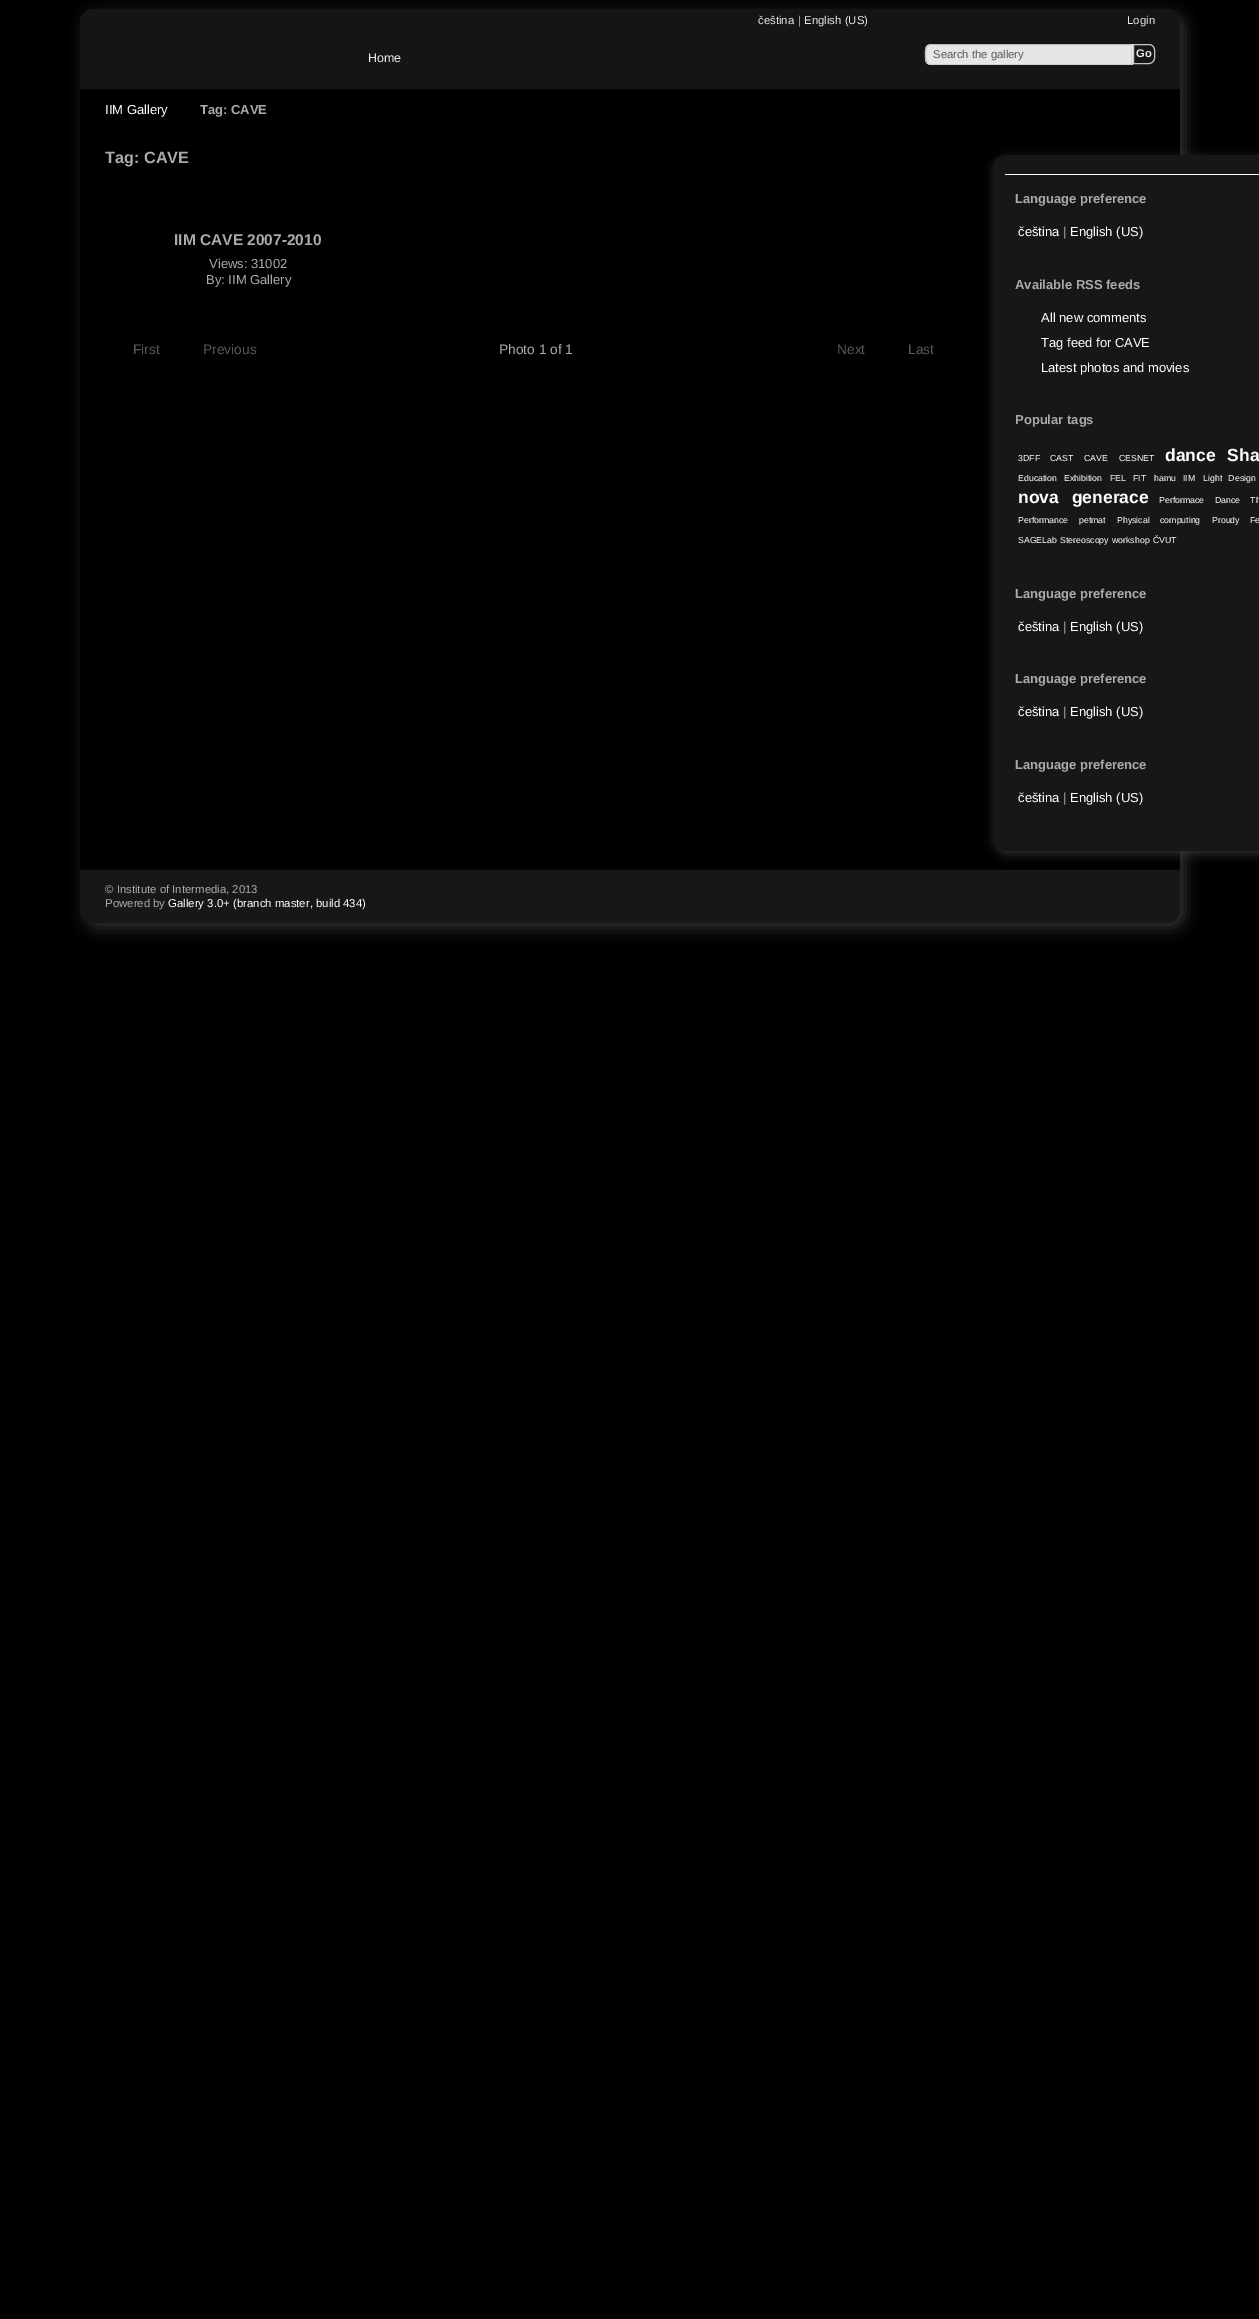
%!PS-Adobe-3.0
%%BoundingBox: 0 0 1259 2319
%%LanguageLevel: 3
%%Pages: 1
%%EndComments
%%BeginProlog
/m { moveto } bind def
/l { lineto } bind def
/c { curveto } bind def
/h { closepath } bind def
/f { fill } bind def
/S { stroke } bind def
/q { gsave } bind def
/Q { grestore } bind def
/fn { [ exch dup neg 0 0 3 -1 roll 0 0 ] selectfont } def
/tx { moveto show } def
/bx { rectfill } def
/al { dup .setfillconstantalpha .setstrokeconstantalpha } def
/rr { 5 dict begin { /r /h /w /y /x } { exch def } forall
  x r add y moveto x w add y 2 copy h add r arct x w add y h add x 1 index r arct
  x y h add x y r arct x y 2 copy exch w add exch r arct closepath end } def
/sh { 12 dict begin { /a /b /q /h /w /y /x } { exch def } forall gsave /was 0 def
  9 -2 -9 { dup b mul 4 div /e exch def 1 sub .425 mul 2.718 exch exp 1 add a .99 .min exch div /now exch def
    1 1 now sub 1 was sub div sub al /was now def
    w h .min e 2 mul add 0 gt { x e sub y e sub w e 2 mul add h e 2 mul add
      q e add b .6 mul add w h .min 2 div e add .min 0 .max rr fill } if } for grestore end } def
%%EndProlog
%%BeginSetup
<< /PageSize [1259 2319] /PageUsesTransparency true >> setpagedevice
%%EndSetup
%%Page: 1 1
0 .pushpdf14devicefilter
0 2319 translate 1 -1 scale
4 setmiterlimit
0 setgray
0 0 1259 2319 bx
q
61 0 m 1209 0 l 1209 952 l 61 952 l h 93 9 m 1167 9 l 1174 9 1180 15 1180 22 c 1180 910 l 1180 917 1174 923 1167 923 c 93 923 l 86 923 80 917 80 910 c 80 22 l 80 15 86 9 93 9 c h eoclip newpath
0.2 setgray
85 14 1100 914 13 7.5 1 sh
Q
0.9 al
0.09 setgray
93 9 m 1167 9 l 1174 9 1180 15 1180 22 c 1180 90 l 80 90 l 80 22 l 80 15 86 9 93 9 c h f
1 al
0.02 setgray
80 89 1100 1 bx
/LiberationSans-Regular 11.4 fn
0.902 setgray
(čeština) 758 24 tx
0.6 setgray
(|) 798 24 tx
0.902 setgray
(English \(US\)) 804 24 tx
(Login) 1127 24 tx
/LiberationSans-Regular 12.5 fn
(Home) 368 62 tx
931 44 m 1133 44 l 1133 65 l 931 65 l 927.5 65 925 62.5 925 59 c 925 50 l 925 46.5 927.5 44 931 44 c h f
0.722 setgray
931 44 m 930 44 928 45 927 46 c 928 46 l 930 45 l 1131 45 l 1132 44 l h f
0.82 setgray
1132 64.5 m 1132 44 l 1131 45 l 1131 63.5 l h f
931 65 m 1132 65 l 1132 64 l 1131 64 l 930 64 l 927 63 l 928 64 930 65 931 65 c h f
0.722 setgray
925 50 m 925 54 924 60 927 63 c 927.5 62.5 l 925.5 60.5 926 57 926 54.5 c 926 52 925.5 48.5 927.5 46.5 c 927 46 l 926 47 925 48.5 925 50 c h f
/LiberationSans-Regular 11.25 fn
0.349 setgray
(Search the gallery) 933 58 tx
0.773 setgray
1133.5 44.5 m 1149 44.5 l 1152 44.5 1154.5 47 1154.5 50 c 1154.5 58 l 1154.5 61 1152 63.5 1149 63.5 c 1133.5 63.5 l h S
/LiberationSans-Bold 11.25 fn
0.902 setgray
(Go) 1136 57 tx
/LiberationSans-Regular 13 fn
1 setgray
(IIM Gallery) 105 114 tx
/LiberationSans-Bold 13 fn
0.667 setgray
(Tag: CAVE) 200 114 tx
/LiberationSans-Bold 16.25 fn
(Tag: CAVE) 105 163 tx
/LiberationSans-Bold 15.5 fn
(IIM CAVE 2007-2010) 174 245 tx
/LiberationSans-Regular 13 fn
(Views: 31002) 209 268 tx
(By: IIM Gallery) 206 284 tx
/LiberationSans-Regular 13.75 fn
0.349 setgray
(First) 133 354 tx
(Previous) 203 354 tx
0.667 setgray
(Photo 1 of 1) 499 354 tx
0.349 setgray
(Next) 837 354 tx
(Last) 908 354 tx
0.09 setgray
80 869 m 1180 869 l 1180 910 l 1180 917 1174 923 1167 923 c 93 923 l 86 923 80 917 80 910 c h f
0.02 setgray
80 869 1100 1 bx
0.2 setgray
994 158 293 696 13 5 1 sh
0.09 setgray
993 155 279 696 13 rr f
1 setgray
1005 174 254 1 bx
/LiberationSans-Bold 13 fn
0.667 setgray
(Language preference) 1015 203 tx
/LiberationSans-Regular 13 fn
1 setgray
(čeština) 1018 236 tx
0.667 setgray
(|) 1063 236 tx
1 setgray
(English \(US\)) 1070 236 tx
/LiberationSans-Bold 13 fn
0.667 setgray
(Available RSS feeds) 1015 289 tx
/LiberationSans-Regular 13 fn
1 setgray
(All new comments) 1041 322 tx
(Tag feed for CAVE) 1041 347 tx
(Latest photos and movies) 1041 372 tx
/LiberationSans-Bold 13 fn
0.667 setgray
(Popular tags) 1015 424 tx
/LiberationSans-Regular 8.75 fn
1 setgray
(3DFF) 1018 461 tx
(CAST) 1050 461 tx
(CAVE) 1084 461 tx
(CESNET) 1119 461 tx
/LiberationSans-Bold 17.5 fn
1165 461 m 7 0 32 (dance Sha) widthshow
/LiberationSans-Regular 8.75 fn
(Education) 1018 481 tx
(Exhibition) 1064 481 tx
(FEL) 1110 481 tx
(FIT) 1133 481 tx
(hamu) 1154 481 tx
(IIM) 1183 481 tx
1203 481 m 4 0 32 (Light Design) widthshow
/LiberationSans-Bold 17.5 fn
1018 503 m 8 0 32 (nova generace) widthshow
/LiberationSans-Regular 8.75 fn
1159 503 m 8 0 32 (Performace Dance Th) widthshow
(Performance) 1018 523 tx
(petmat) 1079 523 tx
1117 523 m 8 0 32 (Physical computing) widthshow
1212 523 m 8 0 32 (Proudy Fe) widthshow
(SAGELab) 1018 543 tx
(Stereoscopy) 1060 543 tx
(workshop) 1112 543 tx
(ČVUT) 1153 543 tx
/LiberationSans-Bold 13 fn
0.667 setgray
(Language preference) 1015 598 tx
/LiberationSans-Regular 13 fn
1 setgray
(čeština) 1018 631 tx
0.667 setgray
(|) 1063 631 tx
1 setgray
(English \(US\)) 1070 631 tx
/LiberationSans-Bold 13 fn
0.667 setgray
(Language preference) 1015 683 tx
/LiberationSans-Regular 13 fn
1 setgray
(čeština) 1018 716 tx
0.667 setgray
(|) 1063 716 tx
1 setgray
(English \(US\)) 1070 716 tx
/LiberationSans-Bold 13 fn
0.667 setgray
(Language preference) 1015 769 tx
/LiberationSans-Regular 13 fn
1 setgray
(čeština) 1018 802 tx
0.667 setgray
(|) 1063 802 tx
1 setgray
(English \(US\)) 1070 802 tx
/LiberationSans-Regular 11.4 fn
0.667 setgray
(© Institute of Intermedia, 2013) 105 893 tx
(Powered by) 105 907 tx
1 setgray
(Gallery 3.0+ \(branch master, build 434\)) 168 907 tx
.poppdf14devicefilter showpage
%%EOF
